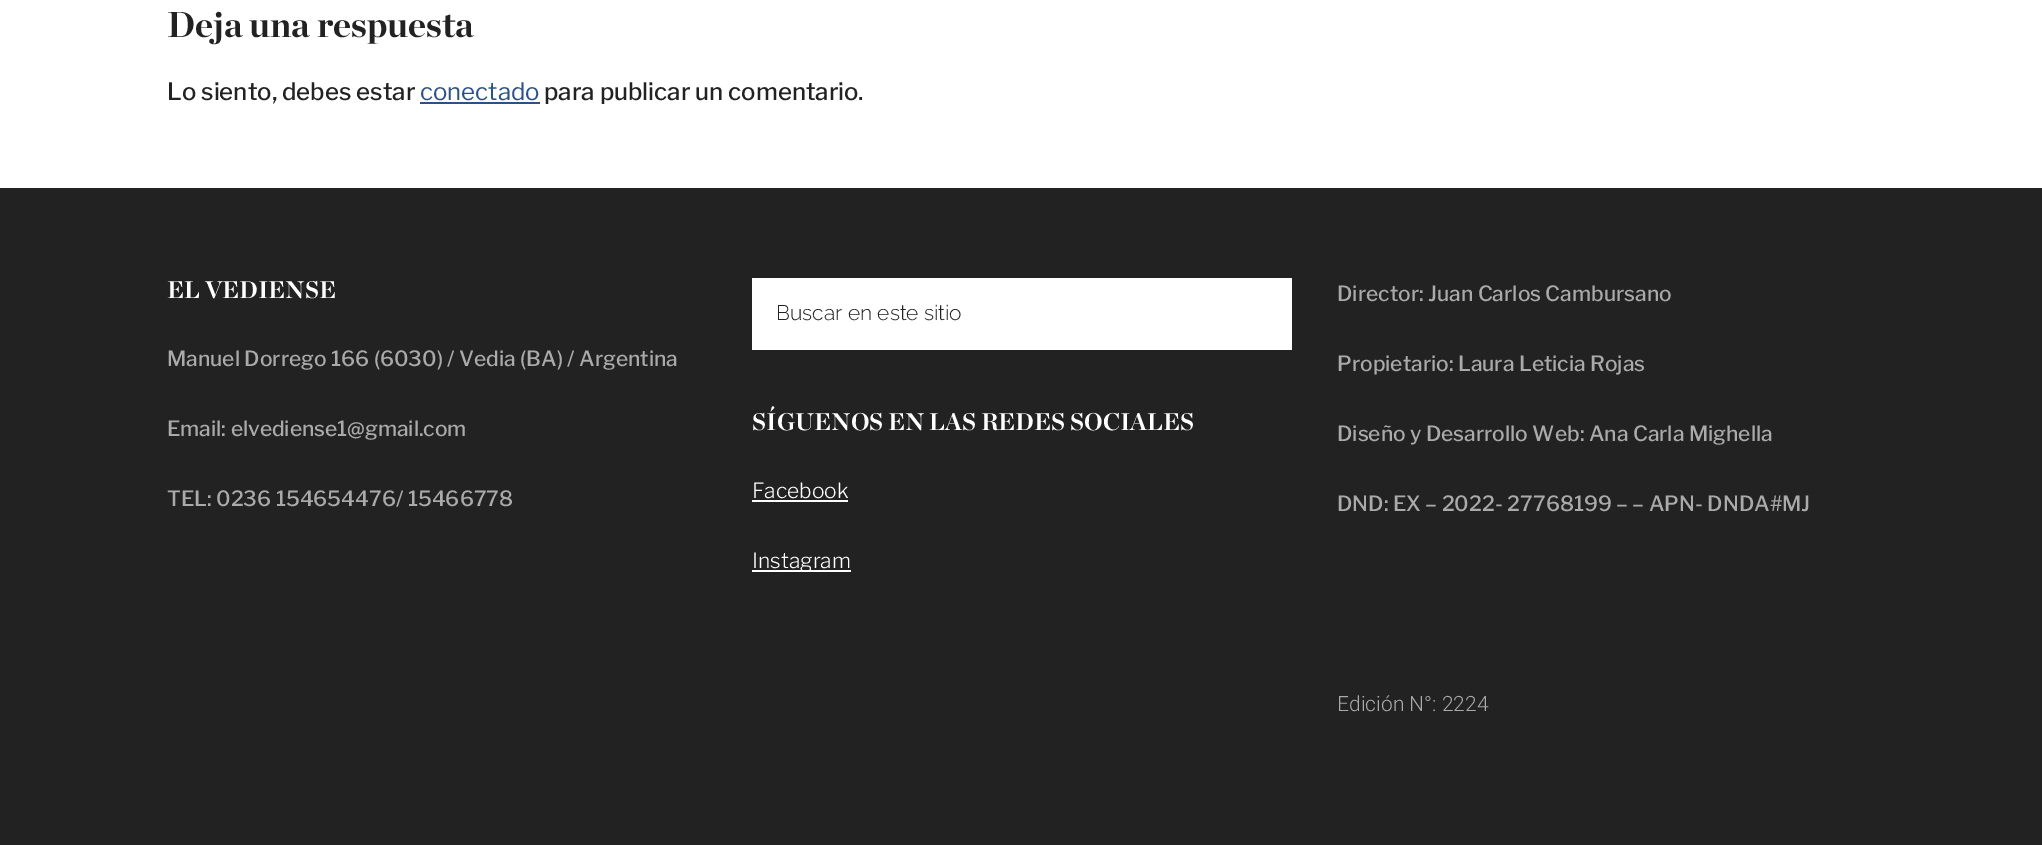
%!PS-Adobe-3.0
%%BoundingBox: 0 0 2042 845
%%LanguageLevel: 3
%%Pages: 1
%%EndComments
%%BeginProlog
/fn { [ exch dup neg 0 0 3 -1 roll 0 0 ] selectfont } def
/tx { moveto show } def
/bx { rectfill } def
%%EndProlog
%%BeginSetup
<< /PageSize [2042 845] >> setpagedevice
%%EndSetup
%%Page: 1 1
0 845 translate 1 -1 scale
4 setmiterlimit
1 setgray
0 0 2042 845 bx
/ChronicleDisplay-Bold 36 fn
0.133 setgray
(Deja una respuesta) 167 37 tx
/LibreFranklin-Medium 24 fn
(Lo siento, debes estar) 167 100 tx
/LibreFranklin-Regular 24 fn
0.173 0.318 0.533 setrgbcolor
(conectado) 420 100 tx
420 102 120 2 bx
/LibreFranklin-Medium 24 fn
0.133 setgray
(para publicar un comentario.) 544 100 tx
0 188 2042 657 bx
/ChronicleDisplay-Bold 24 fn
1 setgray
(EL VEDIENSE) 167 298 tx
/LibreFranklin-Medium 21 fn
0.667 setgray
(Manuel Dorrego 166 \(6030\) / Vedia \(BA\) / Argentina) 167 366 tx
(Email: elvediense1@gmail.com) 167 436 tx
(TEL: 0236 154654476/ 15466778) 167 506 tx
1 setgray
752 278 540 72 bx
/Raleway-Light 21 fn
0.133 setgray
(Buscar en este sitio) 776 320 tx
/ChronicleDisplay-Bold 24 fn
1 setgray
(SÍGUENOS EN LAS REDES SOCIALES) 752 430 tx
/LibreFranklin-Light 21 fn
(Facebook) 752 498 tx
752 500 96 2 bx
752 570 99 2 bx
(Instagram) 752 568 tx
/LibreFranklin-Medium 21 fn
0.667 setgray
(Director: Juan Carlos Cambursano) 1337 301 tx
(Propietario: Laura Leticia Rojas) 1337 371 tx
(Diseño y Desarrollo Web: Ana Carla Mighella) 1337 441 tx
(DND: EX – 2022- 27768199 – – APN- DNDA#MJ) 1337 511 tx
/Roboto-Light 21 fn
(Edición N°: 2224) 1337 711 tx
showpage
%%EOF
